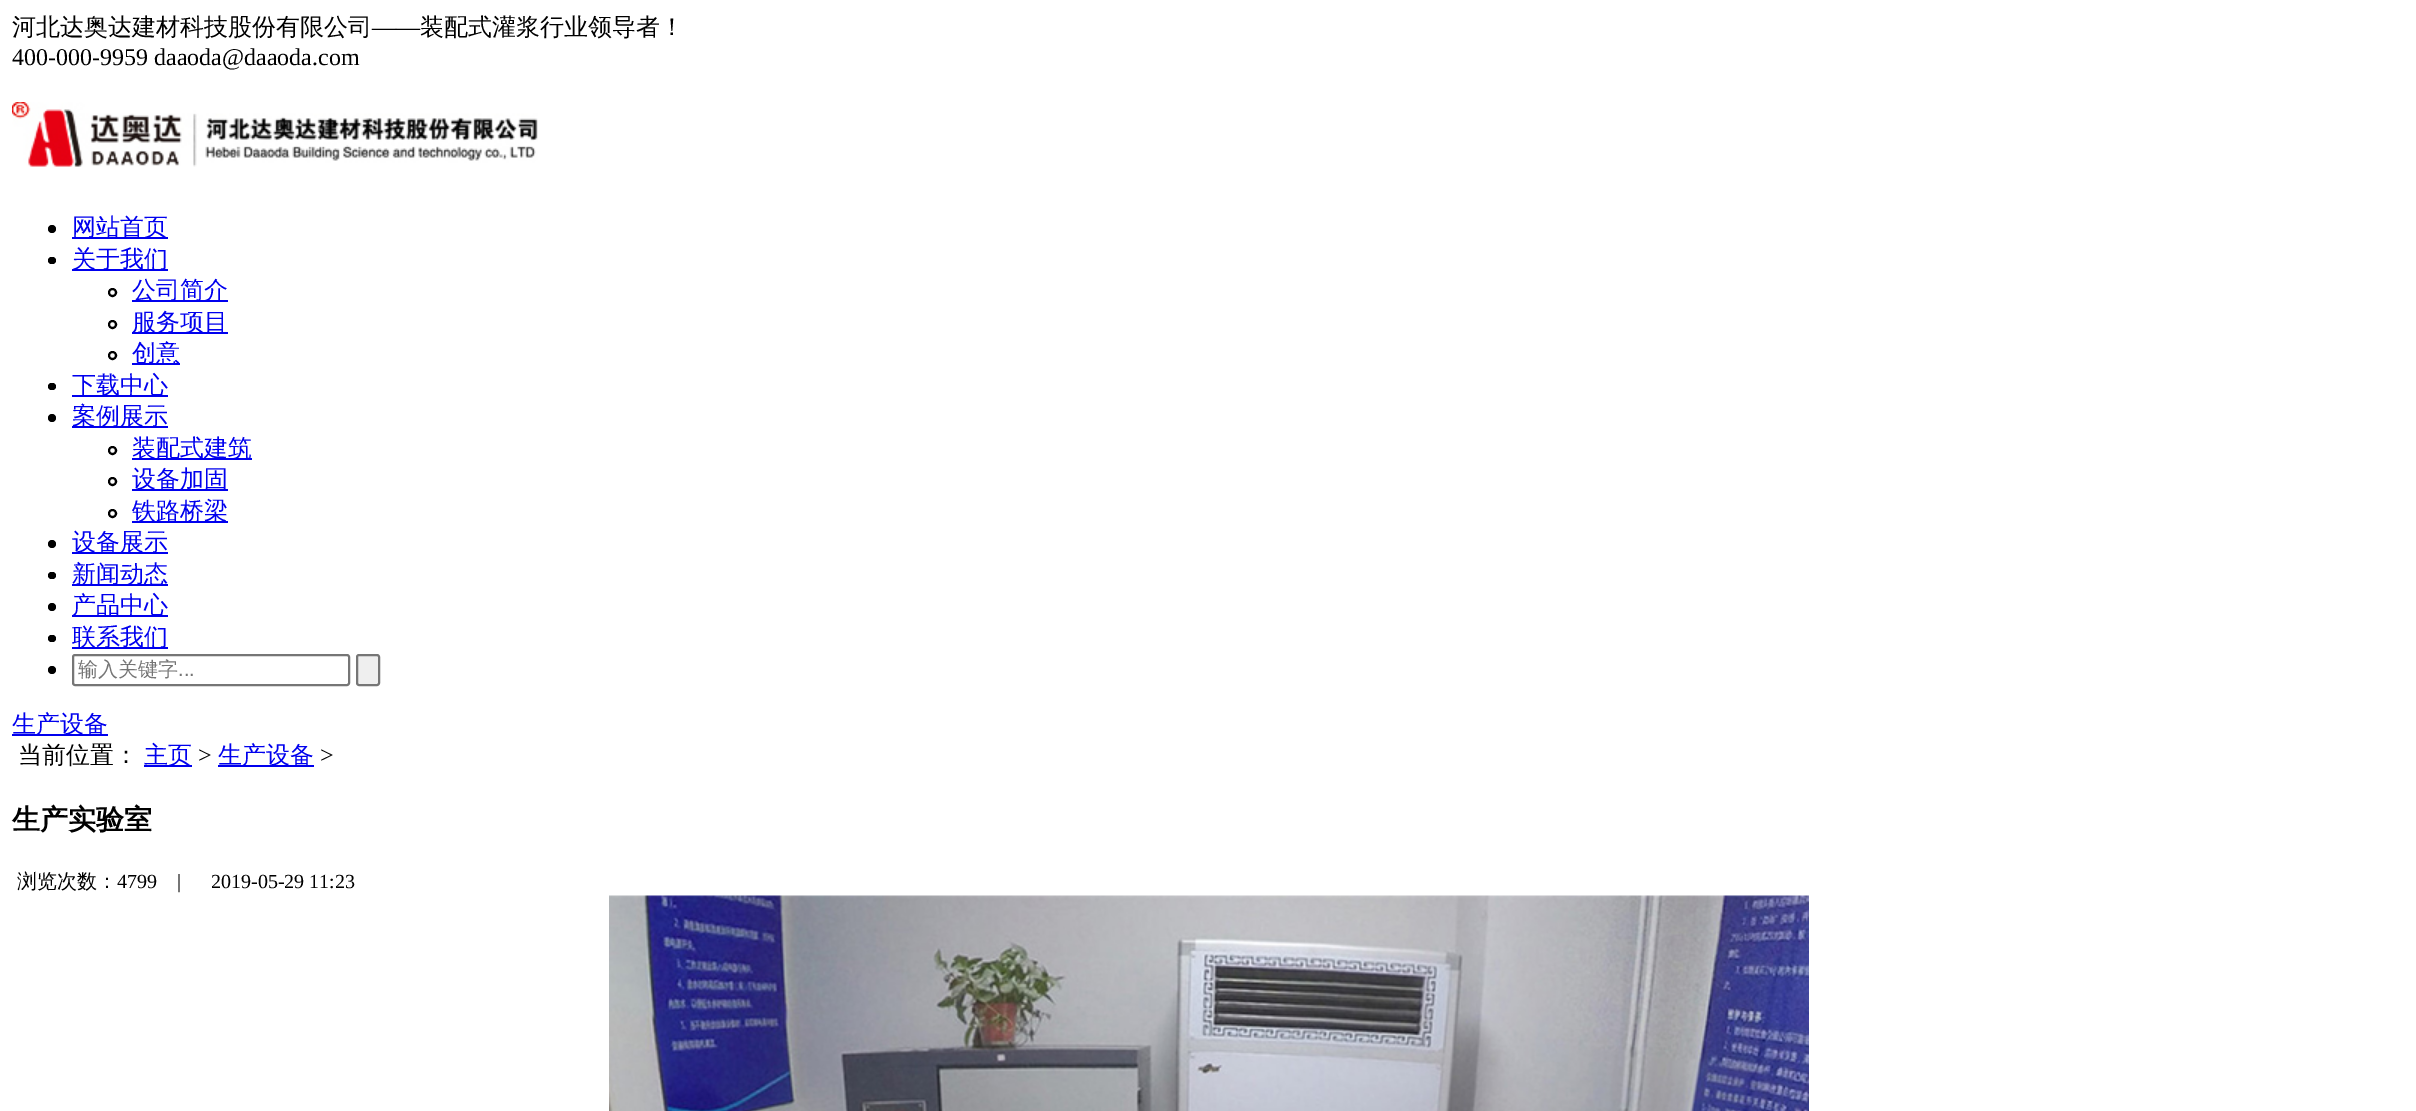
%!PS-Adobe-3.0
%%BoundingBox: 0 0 2416 1111
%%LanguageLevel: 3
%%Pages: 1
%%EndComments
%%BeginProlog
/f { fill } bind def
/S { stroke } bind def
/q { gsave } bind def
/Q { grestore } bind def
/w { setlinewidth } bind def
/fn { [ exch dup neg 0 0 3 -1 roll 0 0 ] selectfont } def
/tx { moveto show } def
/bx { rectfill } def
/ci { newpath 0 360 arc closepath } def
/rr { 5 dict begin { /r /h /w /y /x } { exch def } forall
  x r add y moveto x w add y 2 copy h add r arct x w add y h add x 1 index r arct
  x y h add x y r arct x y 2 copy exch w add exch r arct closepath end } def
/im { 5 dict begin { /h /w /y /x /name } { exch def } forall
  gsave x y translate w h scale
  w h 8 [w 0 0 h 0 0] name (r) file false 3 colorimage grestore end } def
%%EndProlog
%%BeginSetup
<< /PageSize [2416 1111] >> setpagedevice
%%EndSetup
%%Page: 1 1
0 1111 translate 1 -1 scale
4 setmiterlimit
1 setgray
0 0 2416 1111 bx
/WenQuanYiZenHei-Medium 24 fn
0 setgray
(河北达奥达建材科技股份有限公司) 12 35 tx
/LiberationSerif-Regular 24 fn
(——) 372 35 tx
/WenQuanYiZenHei-Medium 24 fn
(装配式灌浆行业领导者！) 420 35 tx
/LiberationSerif-Regular 24 fn
(400-000-9959 daaoda@daaoda.com) 12 65 tx
(image0.raw) 12 102 526 65 im
52 229 4 ci f
0 0 0.933 setrgbcolor
72 237 96 2 bx
/WenQuanYiZenHei-Medium 24 fn
(网站首页) 72 235 tx
0 setgray
48 257 8 7 3.5 rr f
0 0 0.933 setrgbcolor
72 269 96 2 bx
(关于我们) 72 267 tx
0 setgray
2 w
112.5 292.5 3.5 ci S
0 0 0.933 setrgbcolor
132 300 96 2 bx
(公司简介) 132 298 tx
0 setgray
112.5 324.5 3.5 ci S
0 0 0.933 setrgbcolor
132 332 96 2 bx
(服务项目) 132 330 tx
0 setgray
112.5 355.5 3.5 ci S
0 0 0.933 setrgbcolor
132 363 48 2 bx
(创意) 132 361 tx
0 setgray
48 383 8 7 3.5 rr f
0 0 0.933 setrgbcolor
72 395 96 2 bx
(下载中心) 72 393 tx
0 setgray
52 418 4 ci f
0 0 0.933 setrgbcolor
72 426 96 2 bx
(案例展示) 72 424 tx
0 setgray
112.5 450.5 3.5 ci S
0 0 0.933 setrgbcolor
132 458 120 2 bx
(装配式建筑) 132 456 tx
0 setgray
112.5 481.5 3.5 ci S
0 0 0.933 setrgbcolor
132 489 96 2 bx
(设备加固) 132 487 tx
0 setgray
112.5 513.5 3.5 ci S
0 0 0.933 setrgbcolor
132 521 96 2 bx
(铁路桥梁) 132 519 tx
0 setgray
52 544 4 ci f
0 0 0.933 setrgbcolor
72 552 96 2 bx
(设备展示) 72 550 tx
0 setgray
48 572 8 7 3.5 rr f
0 0 0.933 setrgbcolor
72 584 96 2 bx
(新闻动态) 72 582 tx
0 setgray
52 607 4 ci f
0 0 0.933 setrgbcolor
72 615 96 2 bx
(产品中心) 72 613 tx
0 setgray
48 635 8 7 3.5 rr f
0 0 0.933 setrgbcolor
72 647 96 2 bx
(联系我们) 72 645 tx
0 setgray
52 670 4 ci f
0.463 setgray
73 655 276 30 2 rr S
/WenQuanYiZenHei-Medium 20 fn
0.459 setgray
(输入关键字) 78 676 tx
/LiberationSans-Regular 20 fn
(...) 178 676 tx
0.937 setgray
357 655 22 30 2 rr q f Q
0.463 setgray
S
0 0 0.933 setrgbcolor
12 734 96 2 bx
/WenQuanYiZenHei-Medium 24 fn
(生产设备) 12 732 tx
0 setgray
(当前位置：) 18 763 tx
0 0 0.933 setrgbcolor
144 765 48 2 bx
(主页) 144 763 tx
/LiberationSerif-Regular 24 fn
0 setgray
(>) 198 763 tx
0 0 0.933 setrgbcolor
218 765 96 2 bx
/WenQuanYiZenHei-Medium 24 fn
(生产设备) 218 763 tx
/LiberationSerif-Regular 24 fn
0 setgray
(>) 320 763 tx
/WenQuanYiZenHei-Bold 28 fn
(生产实验室) 12 829 tx
/WenQuanYiZenHei-Medium 20 fn
(浏览次数：) 17 888 tx
/LiberationSerif-Regular 20 fn
(4799    |) 117 888 tx
(2019-05-29 11:23) 211 888 tx
(image1.raw) 609 895 1200 216 im
showpage
%%EOF
